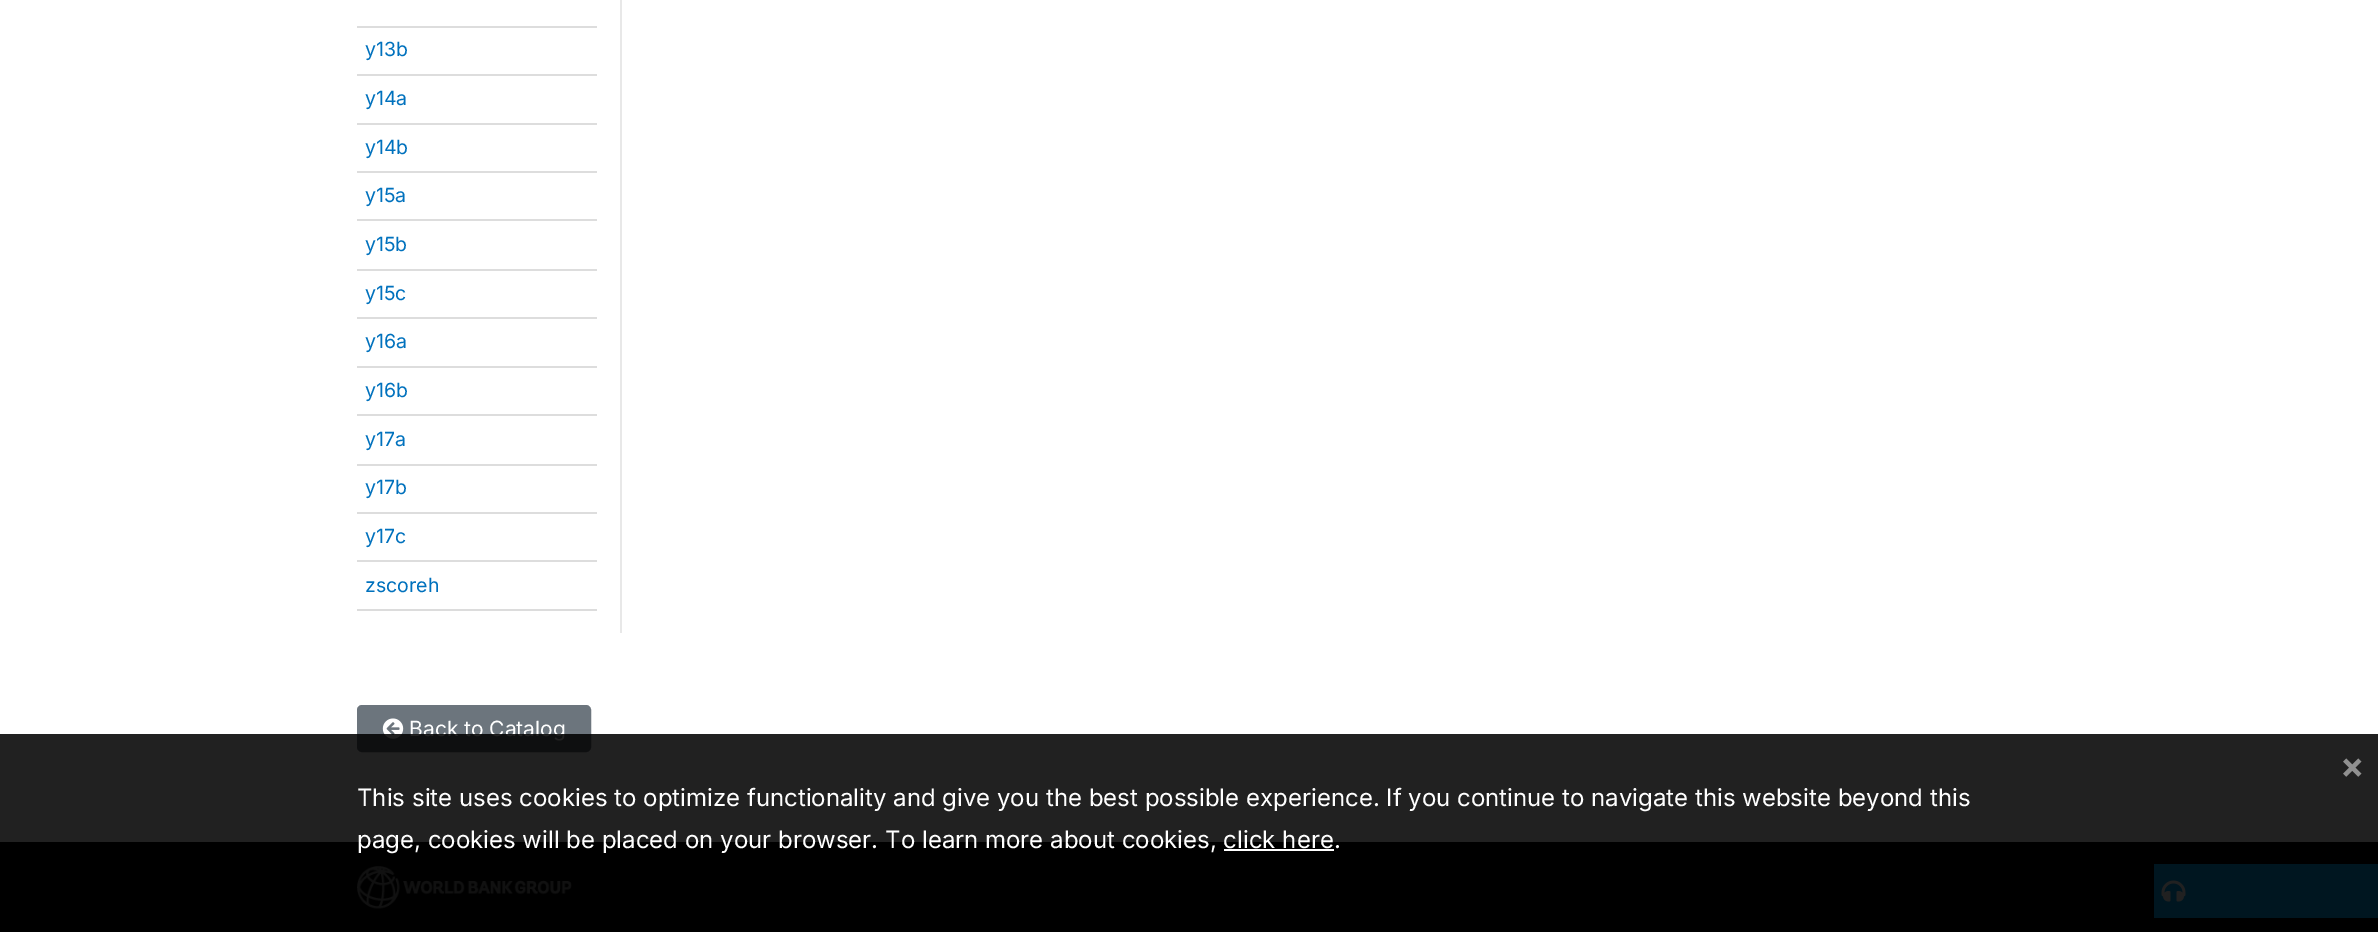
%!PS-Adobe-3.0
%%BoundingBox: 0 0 2378 932
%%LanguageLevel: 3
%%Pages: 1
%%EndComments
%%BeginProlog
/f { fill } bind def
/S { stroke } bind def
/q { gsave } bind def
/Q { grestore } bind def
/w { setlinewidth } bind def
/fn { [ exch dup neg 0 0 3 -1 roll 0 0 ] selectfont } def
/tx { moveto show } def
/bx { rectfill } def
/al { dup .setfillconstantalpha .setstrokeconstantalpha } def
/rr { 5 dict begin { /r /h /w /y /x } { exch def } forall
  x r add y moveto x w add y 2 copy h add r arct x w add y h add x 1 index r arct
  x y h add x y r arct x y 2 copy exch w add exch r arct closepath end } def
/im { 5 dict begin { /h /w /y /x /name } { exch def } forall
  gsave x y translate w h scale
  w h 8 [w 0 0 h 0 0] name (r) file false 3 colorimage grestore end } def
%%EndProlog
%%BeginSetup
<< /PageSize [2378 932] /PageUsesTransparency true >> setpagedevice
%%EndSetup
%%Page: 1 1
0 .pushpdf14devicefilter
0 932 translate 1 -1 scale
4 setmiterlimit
1 setgray
0 0 2378 932 bx
0.867 setgray
357 26 240 2 bx
/Inter-Regular 19.5 fn
0 0.443 0.741 setrgbcolor
(y13b) 365 56 tx
0.867 setgray
357 74 240 2 bx
0 0.443 0.741 setrgbcolor
(y14a) 365 105 tx
0.867 setgray
357 123 240 2 bx
0 0.443 0.741 setrgbcolor
(y14b) 365 154 tx
0.867 setgray
357 171 240 2 bx
0 0.443 0.741 setrgbcolor
(y15a) 365 202 tx
0.867 setgray
357 219 240 2 bx
0 0.443 0.741 setrgbcolor
(y15b) 365 251 tx
0.867 setgray
357 269 240 2 bx
0 0.443 0.741 setrgbcolor
(y15c) 365 300 tx
0.867 setgray
357 317 240 2 bx
0 0.443 0.741 setrgbcolor
(y16a) 365 348 tx
0.867 setgray
357 366 240 2 bx
0 0.443 0.741 setrgbcolor
(y16b) 365 397 tx
0.867 setgray
357 414 240 2 bx
0 0.443 0.741 setrgbcolor
(y17a) 365 446 tx
0.867 setgray
357 464 240 2 bx
0 0.443 0.741 setrgbcolor
(y17b) 365 494 tx
0.867 setgray
357 512 240 2 bx
0 0.443 0.741 setrgbcolor
(y17c) 365 543 tx
0.867 setgray
357 560 240 2 bx
0.863 setgray
357 609 240 2 bx
0 0.443 0.741 setrgbcolor
(zscoreh) 365 592 tx
0.91 setgray
620 0 2 633 bx
0.424 0.459 0.49 setrgbcolor
358 706 232 45 4 rr q f Q
2 w
S
(image0.raw) 382 718 22 21 im
/Inter-Regular 21 fn
1 setgray
(Back to Catalog) 409 736 tx
0 setgray
0 842 2378 90 bx
(image1.raw) 357 866 215 43 im
0.012 0.663 0.957 setrgbcolor
2154 864 224 54 bx
(image2.raw) 2161 880 25 22 im
0.87 al
0 setgray
0 734 2378 184 bx
/Inter-Bold 36 fn
1 al
0.565 setgray
(×) 2340 778 tx
/Inter-Regular 24 fn
1 setgray
(This site uses cookies to optimize functionality and give you the best possible experience. If you continue to navigate this website beyond this) 357 806 tx
(page, cookies will be placed on your browser. To learn more about cookies, click here.) 357 848 tx
1224 849 110 2 bx
.poppdf14devicefilter showpage
%%EOF
